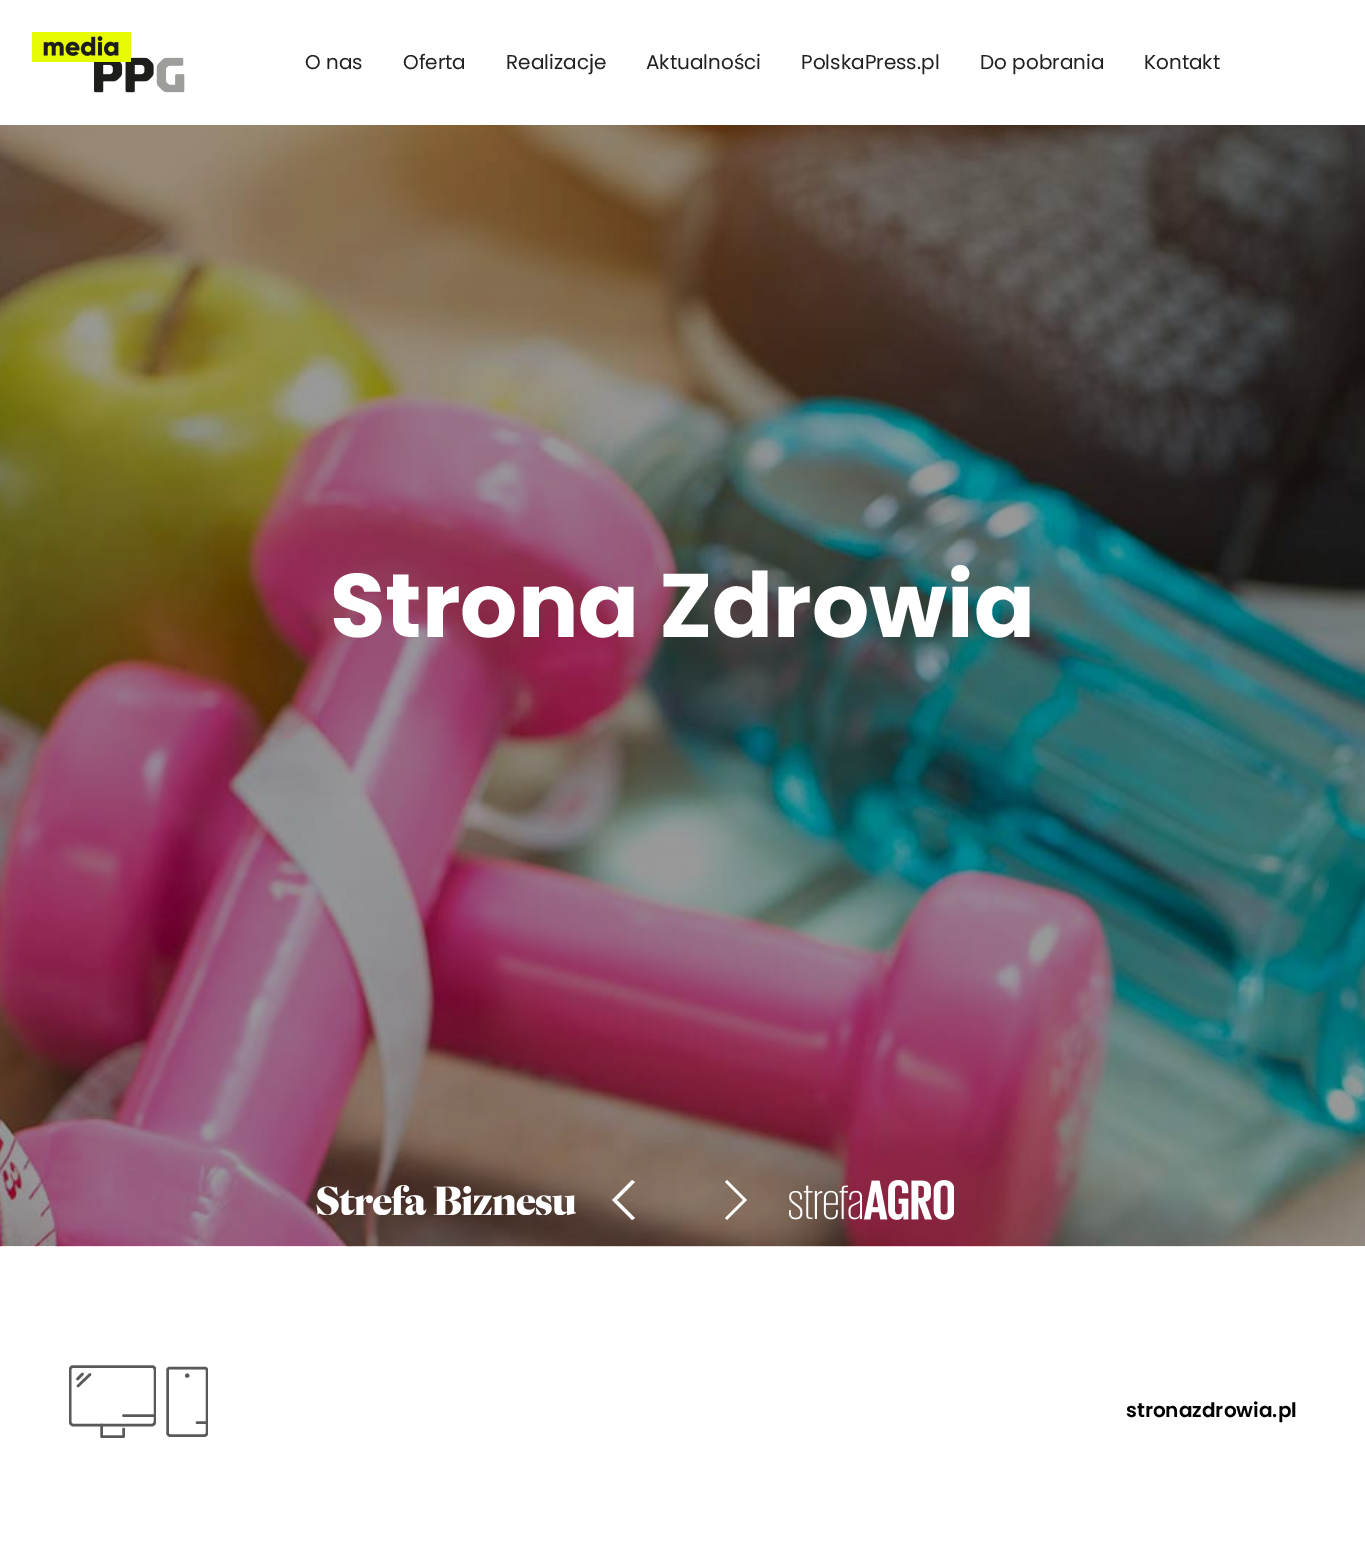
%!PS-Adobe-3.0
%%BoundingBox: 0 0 1365 1557
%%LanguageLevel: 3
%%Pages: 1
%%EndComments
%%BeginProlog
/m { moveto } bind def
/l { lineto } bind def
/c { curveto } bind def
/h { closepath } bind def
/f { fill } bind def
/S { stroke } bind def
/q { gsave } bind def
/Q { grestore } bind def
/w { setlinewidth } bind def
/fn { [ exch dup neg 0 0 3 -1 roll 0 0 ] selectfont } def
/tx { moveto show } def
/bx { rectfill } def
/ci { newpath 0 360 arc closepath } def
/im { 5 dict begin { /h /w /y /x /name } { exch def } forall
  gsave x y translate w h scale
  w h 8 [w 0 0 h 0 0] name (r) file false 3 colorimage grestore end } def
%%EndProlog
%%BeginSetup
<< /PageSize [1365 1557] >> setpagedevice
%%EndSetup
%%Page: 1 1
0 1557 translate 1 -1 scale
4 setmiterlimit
1 setgray
0 0 1365 1557 bx
(image0.raw) 32 32 241 61 im
/Poppins-Regular 20 fn
0.129 setgray
(O nas) 305 69 tx
(Oferta) 403 69 tx
(Realizacje) 506 69 tx
(Aktualności) 646 69 tx
(PolskaPress.pl) 801 69 tx
(Do pobrania) 980 69 tx
(Kontakt) 1144 69 tx
(image1.raw) 0 125 1365 1122 im
/Poppins-Bold 90 fn
1 setgray
(Strona Zdrowia) 330 637 tx
(image2.raw) 316 1185 260 30 im
635 1218 m 632 1220 l 612 1200 l 615 1198 l h 635 1182 m 615 1202 l 612 1200 l 632 1180 l h f
725 1182 m 727 1180 l 747 1200 l 745 1202 l h 725 1218 m 745 1198 l 747 1200 l 727 1220 l h f
(image3.raw) 789 1180 165 40 im
0.349 setgray
2.5 w
1 setlinecap
1 setlinejoin
123.5 1429 m 123.5 1436.5 l 101.5 1436.5 l 101.5 1425 l S
q
69 1365 87 74 rectclip
0 setlinejoin
123.5 1415.5 m 155.5 1415.5 l S
Q
0 setlinejoin
82.5 1374 m 77.5 1379 l 90 1374.5 m 78 1386 l S
q
69 1365 87 74 rectclip
155 1370 m 155 1421 l 155 1423 154 1425 152 1425 c 73 1425 l 71.5 1425 70 1423.5 70 1421 c 70 1370 l 70 1368 71.5 1366.5 73 1366.5 c 152 1366.5 l 154 1366.5 155 1368 155 1370 c h S
Q
q
166 1365 42 74 rectclip
0 setlinecap
170 1368 m 204.5 1368 l 206 1368 207 1369 207 1370.5 c 207 1433 l 207 1434 206 1435.5 204.5 1435.5 c 170 1435.5 l 168.5 1435.5 167.5 1434 167.5 1433 c 167.5 1370.5 l 167.5 1369 168.5 1368 170 1368 c h S
Q
187.2 1375.6 2.1 ci f
197 1422.5 m 206.5 1422.5 l S
/Poppins-SemiBold 20 fn
0 setgray
(stronazdrowia.pl) 1126 1417 tx
showpage
%%EOF
